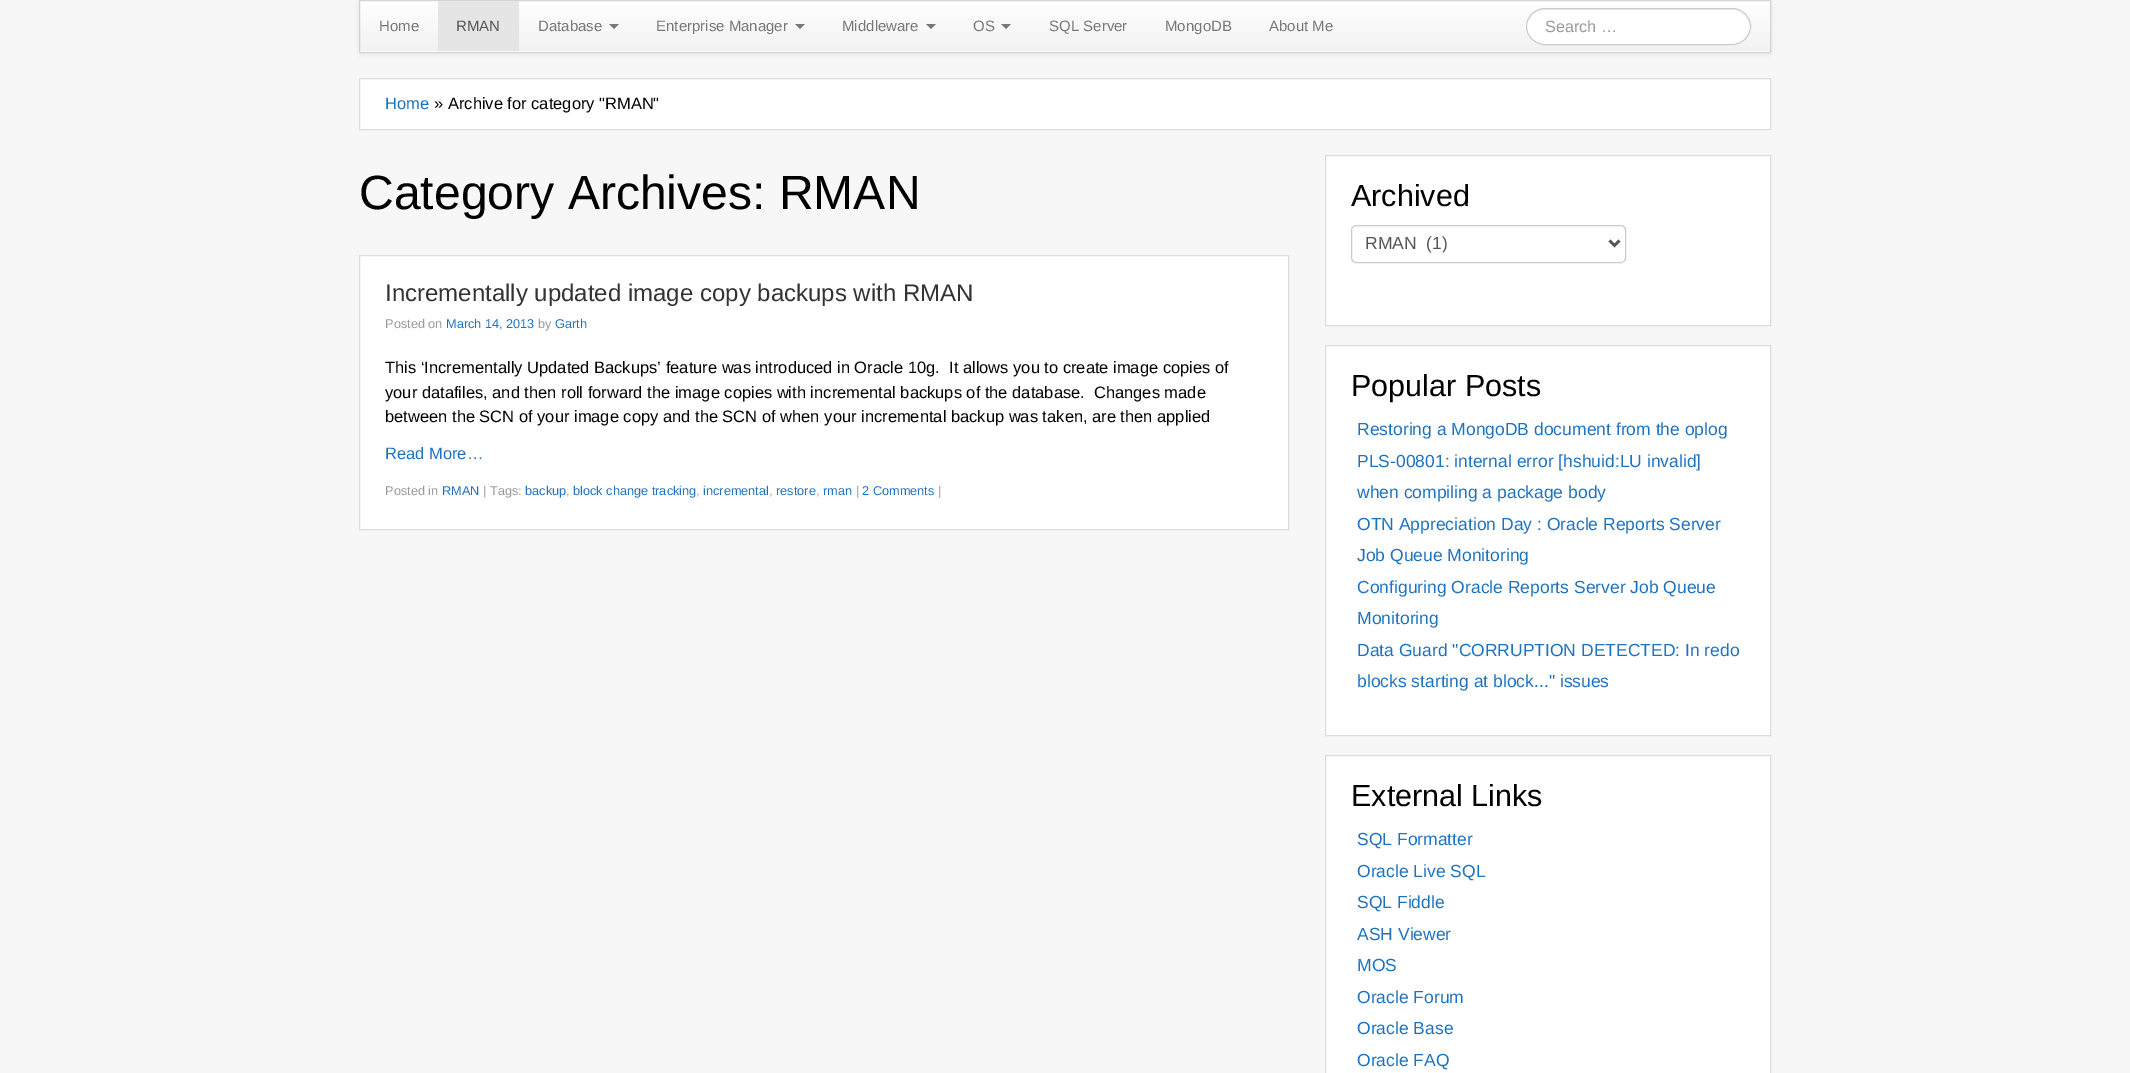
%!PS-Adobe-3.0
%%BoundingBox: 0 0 2130 1073
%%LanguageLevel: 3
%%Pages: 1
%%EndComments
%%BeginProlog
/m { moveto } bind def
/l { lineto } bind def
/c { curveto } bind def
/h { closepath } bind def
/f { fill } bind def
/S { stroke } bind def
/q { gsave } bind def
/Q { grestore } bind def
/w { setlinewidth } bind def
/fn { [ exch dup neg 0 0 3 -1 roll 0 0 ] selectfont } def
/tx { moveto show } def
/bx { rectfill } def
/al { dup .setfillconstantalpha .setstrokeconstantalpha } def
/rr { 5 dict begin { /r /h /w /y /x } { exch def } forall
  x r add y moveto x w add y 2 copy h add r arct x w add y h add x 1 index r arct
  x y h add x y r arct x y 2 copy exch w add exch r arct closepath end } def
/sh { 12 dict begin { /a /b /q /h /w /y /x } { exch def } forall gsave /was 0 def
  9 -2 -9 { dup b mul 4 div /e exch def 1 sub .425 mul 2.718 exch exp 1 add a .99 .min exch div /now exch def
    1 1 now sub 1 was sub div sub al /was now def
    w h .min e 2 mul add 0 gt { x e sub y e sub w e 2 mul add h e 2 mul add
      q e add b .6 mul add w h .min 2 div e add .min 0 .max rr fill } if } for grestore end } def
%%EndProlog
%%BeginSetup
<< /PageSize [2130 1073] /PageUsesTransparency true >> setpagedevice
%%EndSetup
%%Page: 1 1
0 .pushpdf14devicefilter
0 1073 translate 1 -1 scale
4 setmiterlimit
0.969 setgray
0 0 2130 1073 bx
0 setgray
359 1 1412 53 1 2.5 0.07 sh
0.98 setgray
359 0 1412 53 1 rr f
q 360 1 m 1770 1 l 1770 51 l 360 51 l h clip newpath
<< /ShadingType 2 /ColorSpace /DeviceRGB /Coords [1065 1.2 1065 51] /Extend [true true] /Function << /FunctionType 2 /Domain [0 1] /C0 [1 1 1] /C1 [0.949 0.949 0.949] /N 1 >> >> shfill Q
0.831 setgray
359.5 0.5 1411 52 0.5 rr S
/LiberationSans-Regular 15 fn
0.467 setgray
(Home) 379 31 tx
0.898 setgray
438 1 81 50 bx
0.333 setgray
(RMAN) 456 31 tx
0.467 setgray
(Database) 538 31 tx
609 24 m 619 24 l 614 29 l h f
(Enterprise Manager) 656 31 tx
795 24 m 805 24 l 800 29 l h f
(Middleware) 842 31 tx
926 24 m 936 24 l 931 29 l h f
(OS) 973 31 tx
1001 24 m 1011 24 l 1006 29 l h f
(SQL Server) 1049 31 tx
(MongoDB) 1165 31 tx
(About Me) 1269 31 tx
1 setgray
1526 8 225 37 18.5 rr f
0.925 setgray
1545 10 m 1736 10 l 1745 12 1750 20 1750 28 c 1750 26 l 1750 17 1742 9 1732 9 c 1546 9 l 1538 9 1532 14 1529 20 c 1532 14 1537 10 1545 10 c h f
0.8 setgray
1526.5 8.5 224 36 18 rr S
/LiberationSans-Regular 16.25 fn
0.6 setgray
(Search …) 1545 32 tx
1 setgray
359.5 78.5 m 1770.5 78.5 l 1770.5 129.5 l 359.5 129.5 l h q f Q
0.867 setgray
S
/LiberationSans-Regular 16.5 fn
0.118 0.451 0.745 setrgbcolor
(Home) 385 109 tx
0 setgray
(» Archive for category "RMAN") 434 109 tx
/LiberationSans-Regular 48.1 fn
(Category Archives: RMAN) 359 209 tx
1 setgray
359.5 255.5 m 1288.5 255.5 l 1288.5 529.5 l 359.5 529.5 l h q f Q
0.867 setgray
S
/LiberationSans-Regular 24 fn
0.2 setgray
(Incrementally updated image copy backups with RMAN) 385 301 tx
/LiberationSans-Regular 12.75 fn
0.6 setgray
(Posted on) 385 328 tx
0.118 0.451 0.745 setrgbcolor
(March 14, 2013) 446 328 tx
0.6 setgray
(by) 538 328 tx
0.118 0.451 0.745 setrgbcolor
(Garth) 555 328 tx
/LiberationSans-Regular 16.5 fn
0 setgray
(This ‘Incrementally Updated Backups’ feature was introduced in Oracle 10g.  It allows you to create image copies of) 385 373 tx
(your datafiles, and then roll forward the image copies with incremental backups of the database.  Changes made) 385 398 tx
(between the SCN of your image copy and the SCN of when your incremental backup was taken, are then applied) 385 422 tx
0.118 0.451 0.745 setrgbcolor
(Read More…) 385 459 tx
/LiberationSans-Regular 12.75 fn
0.6 setgray
(Posted in) 385 495 tx
0.118 0.451 0.745 setrgbcolor
(RMAN) 442 495 tx
0.6 setgray
(| Tags:) 483 495 tx
0.118 0.451 0.745 setrgbcolor
(backup) 525 495 tx
0.6 setgray
(,) 566 495 tx
0.118 0.451 0.745 setrgbcolor
(block change tracking) 573 495 tx
0.6 setgray
(,) 696 495 tx
0.118 0.451 0.745 setrgbcolor
(incremental) 703 495 tx
0.6 setgray
(,) 769 495 tx
0.118 0.451 0.745 setrgbcolor
(restore) 776 495 tx
0.6 setgray
(,) 816 495 tx
0.118 0.451 0.745 setrgbcolor
(rman) 823 495 tx
0.6 setgray
(|) 856 495 tx
0.118 0.451 0.745 setrgbcolor
(2 Comments) 862 495 tx
0.6 setgray
(|) 938 495 tx
1 setgray
1325.5 155.5 m 1770.5 155.5 l 1770.5 325.5 l 1325.5 325.5 l h q f Q
0.867 setgray
S
/LiberationSans-Regular 30.5 fn
0 setgray
(Archived) 1351 206 tx
0.8 setgray
1351.5 225.5 274 37 4.5 rr S
0.333 setgray
2.5 w
1609.5 240.5 m 1614.5 245.5 l 1619.5 240.5 l S
/LiberationSans-Regular 17.5 fn
(RMAN  \(1\)) 1365 249 tx
1 setgray
1325.5 345.5 m 1770.5 345.5 l 1770.5 735.5 l 1325.5 735.5 l h q f Q
0.867 setgray
1 w
S
/LiberationSans-Regular 30.5 fn
0 setgray
(Popular Posts) 1351 396 tx
/LiberationSans-Regular 17.5 fn
0.118 0.451 0.745 setrgbcolor
(Restoring a MongoDB document from the oplog) 1357 435 tx
(PLS-00801: internal error [hshuid:LU invalid]) 1357 467 tx
(when compiling a package body) 1357 498 tx
(OTN Appreciation Day : Oracle Reports Server) 1357 530 tx
(Job Queue Monitoring) 1357 561 tx
(Configuring Oracle Reports Server Job Queue) 1357 593 tx
(Monitoring) 1357 624 tx
(Data Guard "CORRUPTION DETECTED: In redo) 1357 656 tx
(blocks starting at block..." issues) 1357 687 tx
1 setgray
1325.5 755.5 m 1770.5 755.5 l 1770.5 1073.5 l 1325.5 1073.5 l h q f Q
0.867 setgray
S
/LiberationSans-Regular 30.5 fn
0 setgray
(External Links) 1351 806 tx
/LiberationSans-Regular 17.5 fn
0.118 0.451 0.745 setrgbcolor
(SQL Formatter) 1357 845 tx
(Oracle Live SQL) 1357 877 tx
(SQL Fiddle) 1357 908 tx
(ASH Viewer) 1357 940 tx
(MOS) 1357 971 tx
(Oracle Forum) 1357 1003 tx
(Oracle Base) 1357 1034 tx
(Oracle FAQ) 1357 1066 tx
.poppdf14devicefilter showpage
%%EOF
